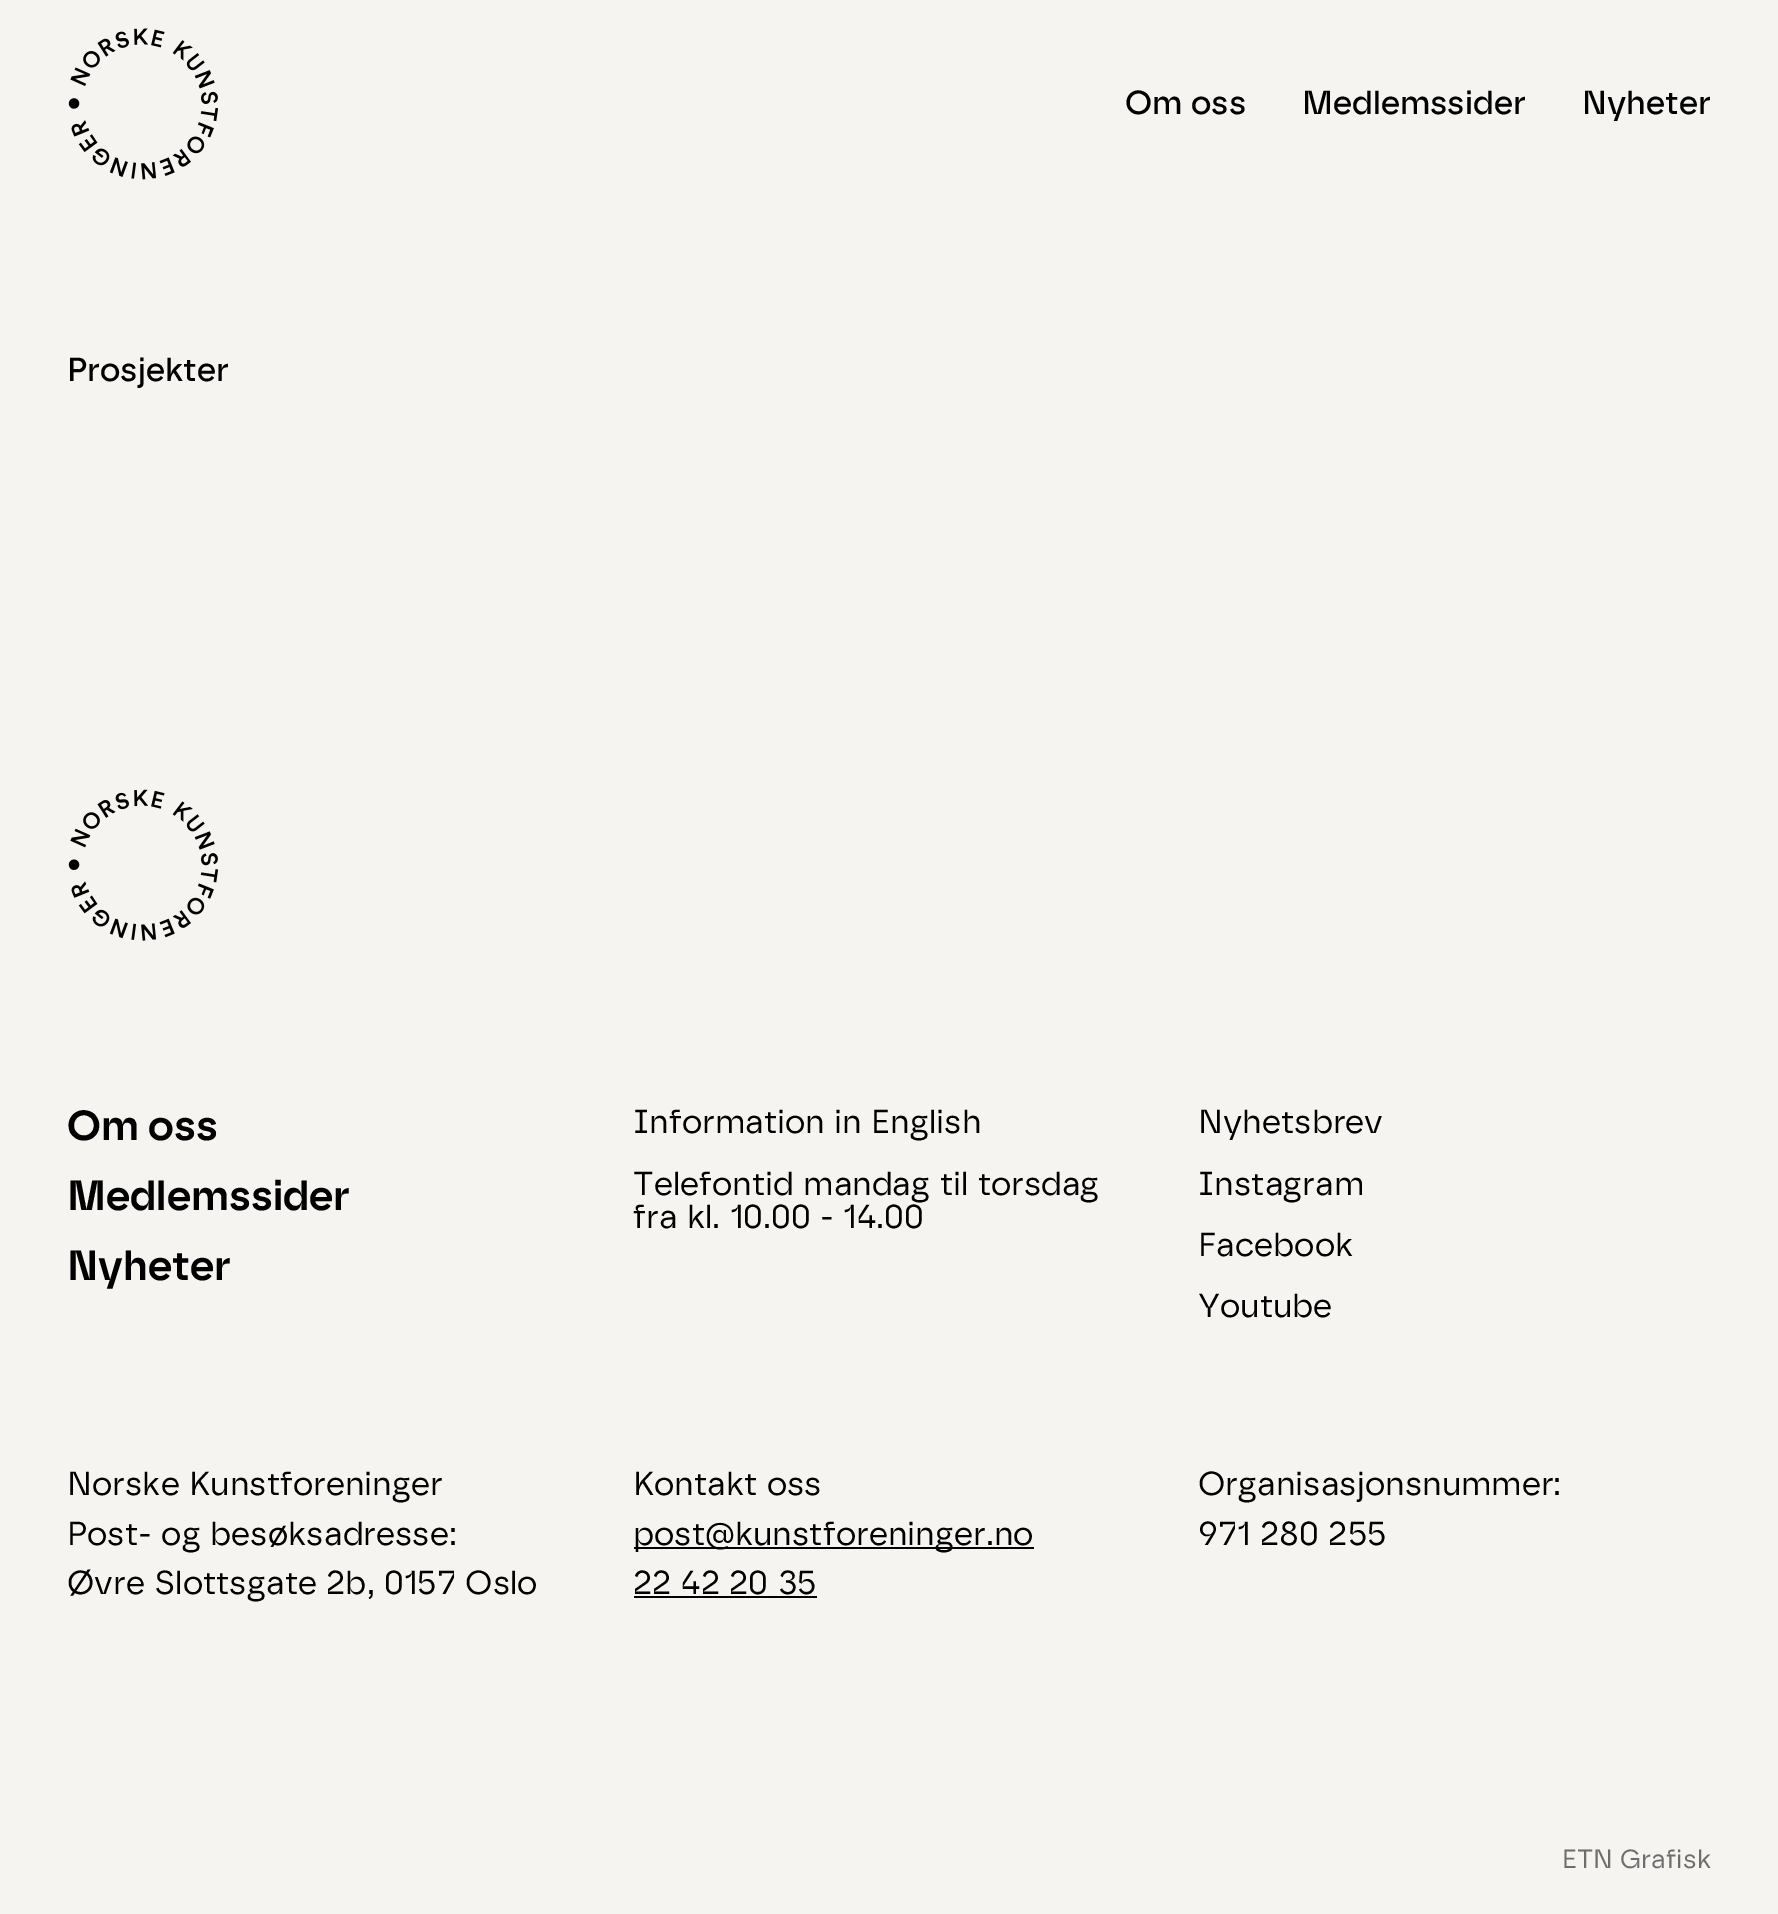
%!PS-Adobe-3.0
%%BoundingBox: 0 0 1778 1914
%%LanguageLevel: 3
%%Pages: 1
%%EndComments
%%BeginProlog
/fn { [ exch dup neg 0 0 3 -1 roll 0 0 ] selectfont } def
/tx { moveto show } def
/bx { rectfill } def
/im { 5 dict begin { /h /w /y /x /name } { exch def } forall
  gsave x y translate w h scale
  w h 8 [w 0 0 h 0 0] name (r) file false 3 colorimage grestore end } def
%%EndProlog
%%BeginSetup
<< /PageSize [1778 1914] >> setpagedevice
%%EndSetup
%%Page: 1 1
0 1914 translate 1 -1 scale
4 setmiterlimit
0.961 0.957 0.941 setrgbcolor
0 0 1778 1914 bx
(image0.raw) 68 28 150 152 im
/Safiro-Medium 33.25 fn
0 setgray
(Om oss) 1125 114 tx
(Medlemssider) 1302 114 tx
(Nyheter) 1582 114 tx
(Prosjekter) 67 381 tx
(image1.raw) 68 789 150 152 im
/Safiro-SemiBold 42 fn
(Om oss) 67 1140 tx
(Medlemssider) 67 1210 tx
(Nyheter) 67 1280 tx
/Safiro-Regular 33.25 fn
(Information in English) 633 1133 tx
(Telefontid mandag til torsdag) 633 1195 tx
(fra kl. 10.00 - 14.00) 633 1228 tx
(Nyhetsbrev) 1198 1133 tx
(Instagram) 1198 1195 tx
(Facebook) 1198 1256 tx
(Youtube) 1198 1317 tx
(Norske Kunstforeninger) 67 1495 tx
(Post- og besøksadresse:) 67 1545 tx
(Øvre Slottsgate 2b, 0157 Oslo) 67 1594 tx
(Kontakt oss) 633 1495 tx
634 1547 400 2 bx
(post@kunstforeninger.no) 633 1545 tx
(22 42 20 35) 633 1594 tx
634 1596 183 2 bx
(Organisasjonsnummer:) 1198 1495 tx
(971 280 255) 1198 1545 tx
/Safiro-Regular 26.25 fn
0.427 setgray
(ETN Grafisk) 1562 1868 tx
showpage
%%EOF
